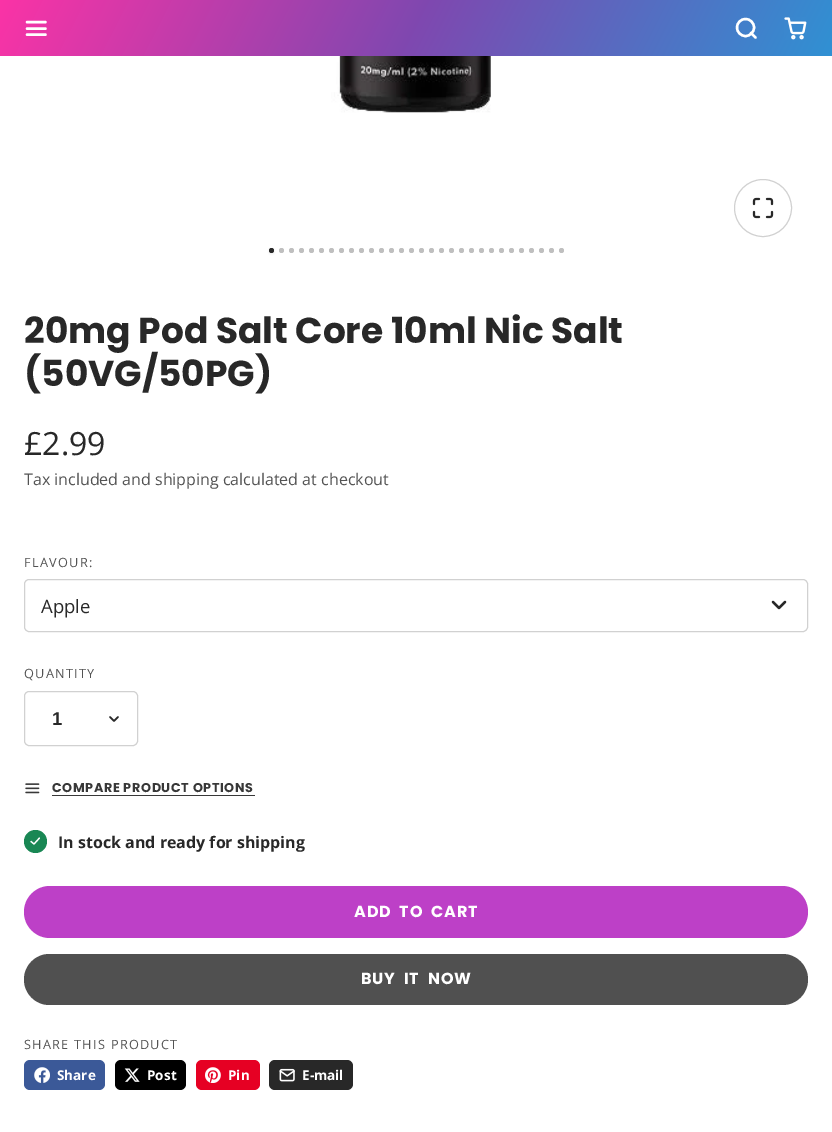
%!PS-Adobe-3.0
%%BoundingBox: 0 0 832 1132
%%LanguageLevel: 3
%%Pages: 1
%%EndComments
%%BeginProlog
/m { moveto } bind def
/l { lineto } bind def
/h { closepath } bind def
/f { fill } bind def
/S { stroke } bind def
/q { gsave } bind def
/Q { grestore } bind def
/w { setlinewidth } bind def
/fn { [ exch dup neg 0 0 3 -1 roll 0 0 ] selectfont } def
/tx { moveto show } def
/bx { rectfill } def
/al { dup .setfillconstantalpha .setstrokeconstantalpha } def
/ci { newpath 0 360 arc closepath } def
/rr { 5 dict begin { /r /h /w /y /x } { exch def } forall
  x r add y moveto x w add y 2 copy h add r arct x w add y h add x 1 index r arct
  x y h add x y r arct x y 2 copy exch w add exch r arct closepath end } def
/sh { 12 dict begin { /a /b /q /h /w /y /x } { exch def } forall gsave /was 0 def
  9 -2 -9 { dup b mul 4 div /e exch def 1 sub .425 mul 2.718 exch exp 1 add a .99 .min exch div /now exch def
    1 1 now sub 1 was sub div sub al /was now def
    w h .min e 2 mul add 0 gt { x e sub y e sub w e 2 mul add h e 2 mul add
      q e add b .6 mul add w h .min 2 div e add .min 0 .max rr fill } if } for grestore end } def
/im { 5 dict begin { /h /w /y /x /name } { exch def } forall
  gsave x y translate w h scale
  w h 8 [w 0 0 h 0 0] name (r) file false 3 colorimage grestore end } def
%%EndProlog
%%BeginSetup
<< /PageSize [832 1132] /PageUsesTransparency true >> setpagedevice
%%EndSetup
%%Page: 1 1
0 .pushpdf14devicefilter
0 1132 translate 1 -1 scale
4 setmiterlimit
1 setgray
0 0 832 1132 bx
q 0 0 m 832 0 l 832 56 l 0 56 l h clip newpath
<< /ShadingType 2 /ColorSpace /DeviceRGB /Coords [74 -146 758 202] /Extend [true true] /Function << /FunctionType 3 /Domain [0 1] /Functions [<< /FunctionType 2 /Domain [0 1] /C0 [0.984 0.2 0.651] /C1 [0.498 0.282 0.69] /N 1 >> << /FunctionType 2 /Domain [0 1] /C0 [0.498 0.282 0.69] /C1 [0.188 0.569 0.827] /N 1 >>] /Bounds [0.5] /Encode [0 1 0 1] >> >> shfill Q
2.4 w
1 setlinecap
1 setlinejoin
27 28.5 m 45.5 28.5 l 27 22 m 45.5 22 l 27 34.5 m 45.5 34.5 l S
0 setlinecap
0 setlinejoin
745.5 27.5 8.5 ci S
1 setlinecap
1 setlinejoin
755.5 37.5 m 751 33 l S
(image0.raw) 784 17 23 23 im
(image1.raw) 331 56 160 57 im
0 setgray
269 249 5 5 2.5 1 0.07 sh
0.157 setgray
271.5 250.5 2.5 ci f
0.749 setgray
281.5 250.5 2.5 ci f
291.5 250.5 2.5 ci f
301.5 250.5 2.5 ci f
311.5 250.5 2.5 ci f
321.5 250.5 2.5 ci f
331.5 250.5 2.5 ci f
341.5 250.5 2.5 ci f
351.5 250.5 2.5 ci f
361.5 250.5 2.5 ci f
371.5 250.5 2.5 ci f
381.5 250.5 2.5 ci f
391.5 250.5 2.5 ci f
401.5 250.5 2.5 ci f
411.5 250.5 2.5 ci f
421.5 250.5 2.5 ci f
431.5 250.5 2.5 ci f
441.5 250.5 2.5 ci f
451.5 250.5 2.5 ci f
461.5 250.5 2.5 ci f
471.5 250.5 2.5 ci f
481.5 250.5 2.5 ci f
491.5 250.5 2.5 ci f
501.5 250.5 2.5 ci f
511.5 250.5 2.5 ci f
521.5 250.5 2.5 ci f
531.5 250.5 2.5 ci f
541.5 250.5 2.5 ci f
551.5 250.5 2.5 ci f
561.5 250.5 2.5 ci f
0.82 setgray
1 w
0 setlinecap
0 setlinejoin
763 208 28.5 ci S
(image2.raw) 752 197 22 22 im
/Poppins-Bold 36 fn
0.157 setgray
(20mg Pod Salt Core 10ml Nic Salt) 24 343 tx
(\(50VG/50PG\)) 24 386 tx
/OpenSans-Regular 32 fn
(£2.99) 24 455 tx
/OpenSans-Regular 16 fn
0.325 setgray
(Tax included and shipping calculated at checkout) 24 485 tx
/OpenSans-Regular 12.75 fn
24 567 m 1.25 0 (FLAVOUR:) ashow
0.82 setgray
24.5 579.5 783 52 4.5 rr S
/OpenSans-Regular 18.5 fn
0.157 setgray
(Apple) 41 613 tx
2.3 w
1 setlinecap
1 setlinejoin
773 602 m 779 608 l 785 602 l S
/OpenSans-Regular 12.75 fn
0.325 setgray
24 678 m 1.25 0 (QUANTITY) ashow
0.82 setgray
1 w
0 setlinecap
0 setlinejoin
24.5 691.5 113 54 4.5 rr S
/LiberationSans-Bold 18.5 fn
0.157 setgray
(1) 52 725 tx
1.5 w
1 setlinecap
1 setlinejoin
110 717 m 114 721 l 118 717 l S
(image3.raw) 25 783 15 11 im
/Poppins-Bold 12.75 fn
0.22 setgray
52 792 m 0.6 0 (COMPARE PRODUCT OPTIONS) ashow
52 795 203 1 bx
0.098 0.529 0.329 setrgbcolor
35.5 841.5 11.5 ci f
1 setgray
1.2 w
39.5 838 m 34 844 l 31 841.5 l S
/OpenSans-Bold 16 fn
0.157 setgray
(In stock and ready for shipping) 58 848 tx
0.741 0.251 0.78 setrgbcolor
24 886 784 52 26 rr f
/Poppins-Bold 16 fn
1 setgray
354 917 m 4 0 32 0.75 0 (ADD TO CART) awidthshow
0.314 setgray
24 954 784 51 25.5 rr f
1 setgray
361 984 m 4 0 32 0.75 0 (BUY IT NOW) awidthshow
/OpenSans-Regular 12.75 fn
0.325 setgray
24 1049 m 1.25 0 (SHARE THIS PRODUCT) ashow
0.231 0.349 0.596 setrgbcolor
24 1060 81 30 6 rr f
(image4.raw) 34 1067 16 16 im
/OpenSans-Bold 13.5 fn
1 setgray
(Share) 57 1080 tx
0 setgray
115 1060 71 30 6 rr f
(image5.raw) 124 1068 16 14 im
1 setgray
(Post) 147 1080 tx
0.902 0 0.137 setrgbcolor
196 1060 64 30 6 rr f
(image6.raw) 205 1067 16 16 im
1 setgray
(Pin) 228 1080 tx
0.157 setgray
269 1060 84 30 6 rr f
(image7.raw) 279 1068 16 14 im
1 setgray
(E-mail) 302 1080 tx
.poppdf14devicefilter showpage
%%EOF
